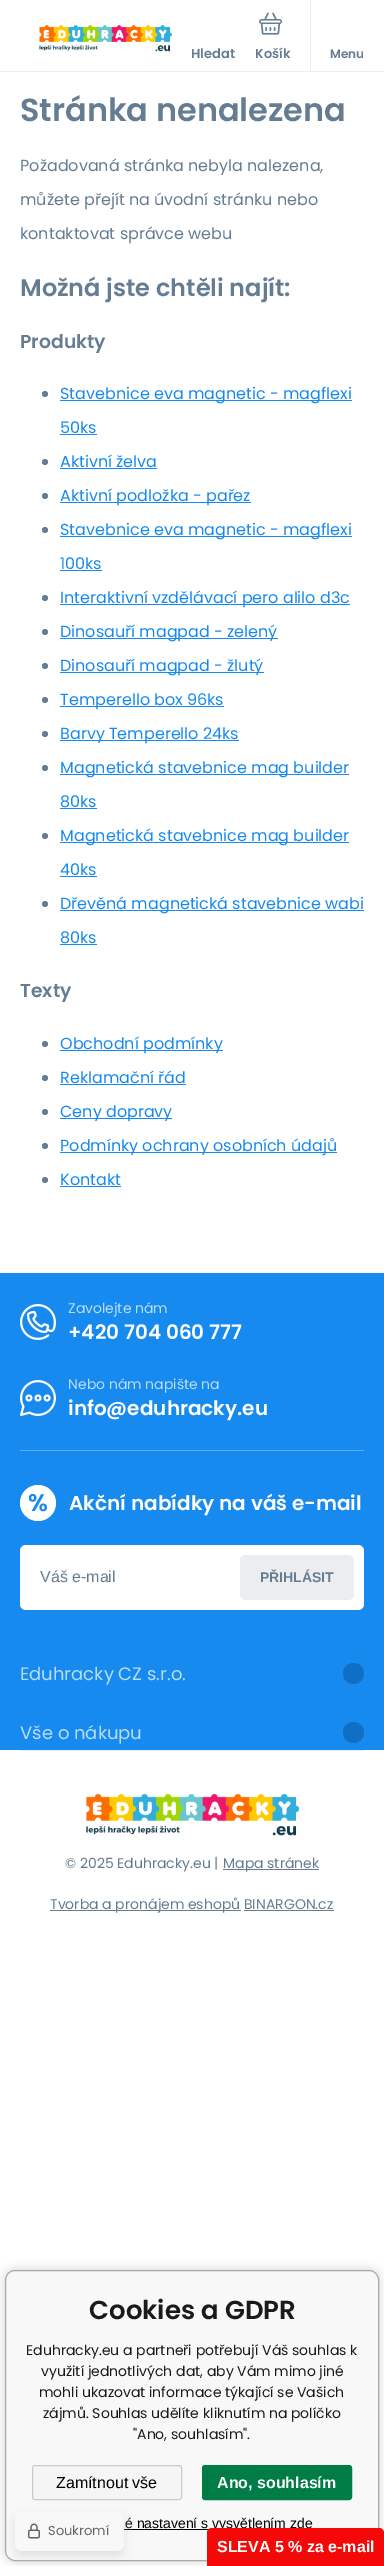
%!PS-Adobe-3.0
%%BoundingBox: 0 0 384 2566
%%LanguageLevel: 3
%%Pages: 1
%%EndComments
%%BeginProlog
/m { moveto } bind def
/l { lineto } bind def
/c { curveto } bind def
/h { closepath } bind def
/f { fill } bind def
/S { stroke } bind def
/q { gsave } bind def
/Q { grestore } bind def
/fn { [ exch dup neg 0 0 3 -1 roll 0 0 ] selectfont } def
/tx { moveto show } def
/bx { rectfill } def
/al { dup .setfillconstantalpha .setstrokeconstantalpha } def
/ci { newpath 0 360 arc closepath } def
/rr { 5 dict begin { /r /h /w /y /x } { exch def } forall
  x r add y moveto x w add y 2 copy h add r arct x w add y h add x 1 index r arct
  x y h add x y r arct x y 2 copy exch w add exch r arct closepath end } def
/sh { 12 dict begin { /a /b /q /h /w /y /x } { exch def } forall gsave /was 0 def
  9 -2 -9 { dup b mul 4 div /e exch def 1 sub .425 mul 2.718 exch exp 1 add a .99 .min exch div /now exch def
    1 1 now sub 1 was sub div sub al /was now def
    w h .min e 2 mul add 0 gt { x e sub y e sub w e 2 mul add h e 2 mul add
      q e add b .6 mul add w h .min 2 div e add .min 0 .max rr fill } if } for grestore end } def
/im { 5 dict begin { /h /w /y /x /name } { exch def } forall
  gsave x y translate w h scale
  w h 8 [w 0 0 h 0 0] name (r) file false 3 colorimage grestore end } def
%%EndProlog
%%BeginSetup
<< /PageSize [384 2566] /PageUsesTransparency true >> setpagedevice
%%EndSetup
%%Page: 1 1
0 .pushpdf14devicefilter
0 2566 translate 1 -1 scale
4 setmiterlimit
1 setgray
0 0 384 2566 bx
0.925 0.929 0.937 setrgbcolor
0 71 384 1 bx
(image0.raw) 39 25 133 27 im
/Poppins-SemiBold 13 fn
0.396 0.49 0.573 setrgbcolor
(Hledat) 191 58 tx
(image1.raw) 259 12 23 23 im
(Košík) 255 58 tx
0.925 0.929 0.937 setrgbcolor
310 0 1 72 bx
/Poppins-SemiBold 12 fn
0.396 0.49 0.573 setrgbcolor
(Menu) 330 58 tx
/Poppins-SemiBold 32 fn
(Stránka nenalezena) 20 121 tx
/Poppins-Regular 16 fn
(Požadovaná stránka nebyla nalezena,) 20 171 tx
(můžete přejít na úvodní stránku nebo) 20 205 tx
(kontaktovat správce webu) 20 239 tx
/Poppins-SemiBold 24 fn
(Možná jste chtěli najít:) 20 296 tx
/Poppins-SemiBold 18.75 fn
(Produkty) 20 348 tx
45 394 3 ci f
0.09 0.541 0.937 setrgbcolor
60 400 292 1 bx
/Poppins-Regular 16 fn
(Stavebnice eva magnetic - magflexi) 60 399 tx
(50ks) 60 433 tx
60 434 37 1 bx
0.396 0.49 0.573 setrgbcolor
45 462 3 ci f
0.09 0.541 0.937 setrgbcolor
(Aktivní želva) 60 467 tx
60 468 97 1 bx
0.396 0.49 0.573 setrgbcolor
45 496 3 ci f
0.09 0.541 0.937 setrgbcolor
60 502 191 1 bx
(Aktivní podložka - pařez) 60 501 tx
0.396 0.49 0.573 setrgbcolor
45 530 3 ci f
0.09 0.541 0.937 setrgbcolor
60 536 292 1 bx
(Stavebnice eva magnetic - magflexi) 60 535 tx
(100ks) 60 569 tx
60 570 42 1 bx
0.396 0.49 0.573 setrgbcolor
45 598 3 ci f
0.09 0.541 0.937 setrgbcolor
60 604 290 1 bx
(Interaktivní vzdělávací pero alilo d3c) 60 603 tx
0.396 0.49 0.573 setrgbcolor
45 632 3 ci f
0.09 0.541 0.937 setrgbcolor
60 638 218 1 bx
(Dinosauří magpad - zelený) 60 637 tx
0.396 0.49 0.573 setrgbcolor
45 666 3 ci f
0.09 0.541 0.937 setrgbcolor
60 672 204 1 bx
(Dinosauří magpad - žlutý) 60 671 tx
0.396 0.49 0.573 setrgbcolor
45 700 3 ci f
0.09 0.541 0.937 setrgbcolor
60 706 164 1 bx
(Temperello box 96ks) 60 705 tx
0.396 0.49 0.573 setrgbcolor
45 734 3 ci f
0.09 0.541 0.937 setrgbcolor
60 740 179 1 bx
(Barvy Temperello 24ks) 60 739 tx
0.396 0.49 0.573 setrgbcolor
45 768 3 ci f
0.09 0.541 0.937 setrgbcolor
60 774 289 1 bx
(Magnetická stavebnice mag builder) 60 773 tx
(80ks) 60 807 tx
60 808 37 1 bx
0.396 0.49 0.573 setrgbcolor
45 836 3 ci f
0.09 0.541 0.937 setrgbcolor
60 842 289 1 bx
(Magnetická stavebnice mag builder) 60 841 tx
(40ks) 60 875 tx
60 876 37 1 bx
0.396 0.49 0.573 setrgbcolor
45 904 3 ci f
0.09 0.541 0.937 setrgbcolor
60 910 304 1 bx
(Dřevěná magnetická stavebnice wabi) 60 909 tx
(80ks) 60 943 tx
60 944 37 1 bx
/Poppins-SemiBold 18.75 fn
0.396 0.49 0.573 setrgbcolor
(Texty) 20 997 tx
45 1044 3 ci f
0.09 0.541 0.937 setrgbcolor
60 1050 163 1 bx
/Poppins-Regular 16 fn
(Obchodní podmínky) 60 1049 tx
0.396 0.49 0.573 setrgbcolor
45 1078 3 ci f
0.09 0.541 0.937 setrgbcolor
(Reklamační řád) 60 1083 tx
60 1084 126 1 bx
0.396 0.49 0.573 setrgbcolor
45 1112 3 ci f
0.09 0.541 0.937 setrgbcolor
60 1118 112 1 bx
(Ceny dopravy) 60 1117 tx
0.396 0.49 0.573 setrgbcolor
45 1146 3 ci f
0.09 0.541 0.937 setrgbcolor
60 1152 277 1 bx
(Podmínky ochrany osobních údajů) 60 1151 tx
0.396 0.49 0.573 setrgbcolor
45 1180 3 ci f
0.09 0.541 0.937 setrgbcolor
(Kontakt) 60 1185 tx
60 1186 61 1 bx
0 1273 384 477 bx
0.365 0.678 0.957 setrgbcolor
20 1450 344 1 bx
(image2.raw) 20 1304 36 36 im
/Poppins-Regular 14 fn
0.725 0.863 0.98 setrgbcolor
(Zavolejte nám) 68 1313 tx
/Poppins-SemiBold 20 fn
1 setgray
(+420 704 060 777) 68 1339 tx
(image3.raw) 20 1380 36 36 im
/Poppins-Regular 14 fn
0.725 0.863 0.98 setrgbcolor
(Nebo nám napište na) 68 1389 tx
/Poppins-SemiBold 20 fn
1 setgray
(info@eduhracky.eu) 68 1415 tx
38 1503 18 ci f
/Poppins-SemiBold 24 fn
0.09 0.541 0.937 setrgbcolor
(%) 28 1511 tx
/Poppins-SemiBold 20 fn
1 setgray
(Akční nabídky na váš e-mail) 69 1510 tx
20 1545 344 65 6 rr f
/LiberationSans-Regular 16 fn
0.396 0.49 0.573 setrgbcolor
(Váš e-mail) 40 1582 tx
0.925 0.929 0.937 setrgbcolor
240 1555 114 45 6 rr f
/LiberationSans-Bold 14 fn
0.396 0.49 0.573 setrgbcolor
(PŘIHLÁSIT) 260 1582 tx
/Poppins-Regular 18 fn
0.725 0.863 0.98 setrgbcolor
(Eduhracky CZ s.r.o.) 20 1680 tx
0.055 0.435 0.773 setrgbcolor
353.5 1673.5 10.5 ci f
0.725 0.863 0.98 setrgbcolor
(Vše o nákupu) 20 1739 tx
0.055 0.435 0.773 setrgbcolor
353.5 1732.5 10.5 ci f
0.925 0.929 0.937 setrgbcolor
20 1750 344 1 bx
(image4.raw) 86 1793 214 43 im
/Poppins-Regular 14 fn
0.396 0.49 0.573 setrgbcolor
(© 2025 Eduhracky.eu |) 65 1868 tx
223 1869 96 1 bx
(Mapa stránek) 223 1868 tx
50 1910 191 1 bx
(Tvorba a pronájem eshopů BINARGON.cz) 50 1909 tx
244 1910 90 1 bx
0.784 setgray
5 2270 374 291 10 5 0.8 sh
0.973 setgray
5.5 2270.5 373 290 9.5 rr q f Q
0.667 setgray
S
/Poppins-SemiBold 26 fn
0.102 setgray
(Cookies a GDPR) 89 2319 tx
/Poppins-Regular 14 fn
(Eduhracky.eu a partneři potřebují Váš souhlas k) 26 2355 tx
(využití jednotlivých dat, aby Vám mimo jiné) 41 2376 tx
(mohli ukazovat informace týkající se Vašich) 39 2397 tx
(zájmů. Souhlas udělíte kliknutím na políčko) 43 2418 tx
("Ano, souhlasím".) 133 2439 tx
0.961 setgray
32.5 2465.5 149 34 2.5 rr q f Q
0.792 setgray
S
/LiberationSans-Regular 16 fn
0 setgray
(Zamítnout vše) 56 2488 tx
0 0.486 0.278 setrgbcolor
202.5 2465.5 149 34 2.5 rr q f Q
S
/LiberationSans-Bold 16 fn
1 setgray
(Ano, souhlasím) 217 2488 tx
0 setgray
124 2529 85 1 bx
/LiberationSans-Regular 14 fn
(é nastavení s vysvětlením zde) 125 2528 tx
0.784 setgray
15 2516 109 40 7 5 0.5 sh
0.973 setgray
15 2511 109 40 7 rr f
(image5.raw) 28 2523 12 16 im
/Poppins-Regular 13 fn
0.392 setgray
(Soukromí) 48 2535 tx
0.961 0.031 0.031 setrgbcolor
212 2528 m 379 2528 l 382 2528 384 2530 384 2533 c 384 2566 l 207 2566 l 207 2533 l 207 2530 209 2528 212 2528 c h f
/LiberationSans-Bold 16 fn
1 setgray
(SLEVA 5 % za e-mail) 217 2552 tx
.poppdf14devicefilter showpage
%%EOF
